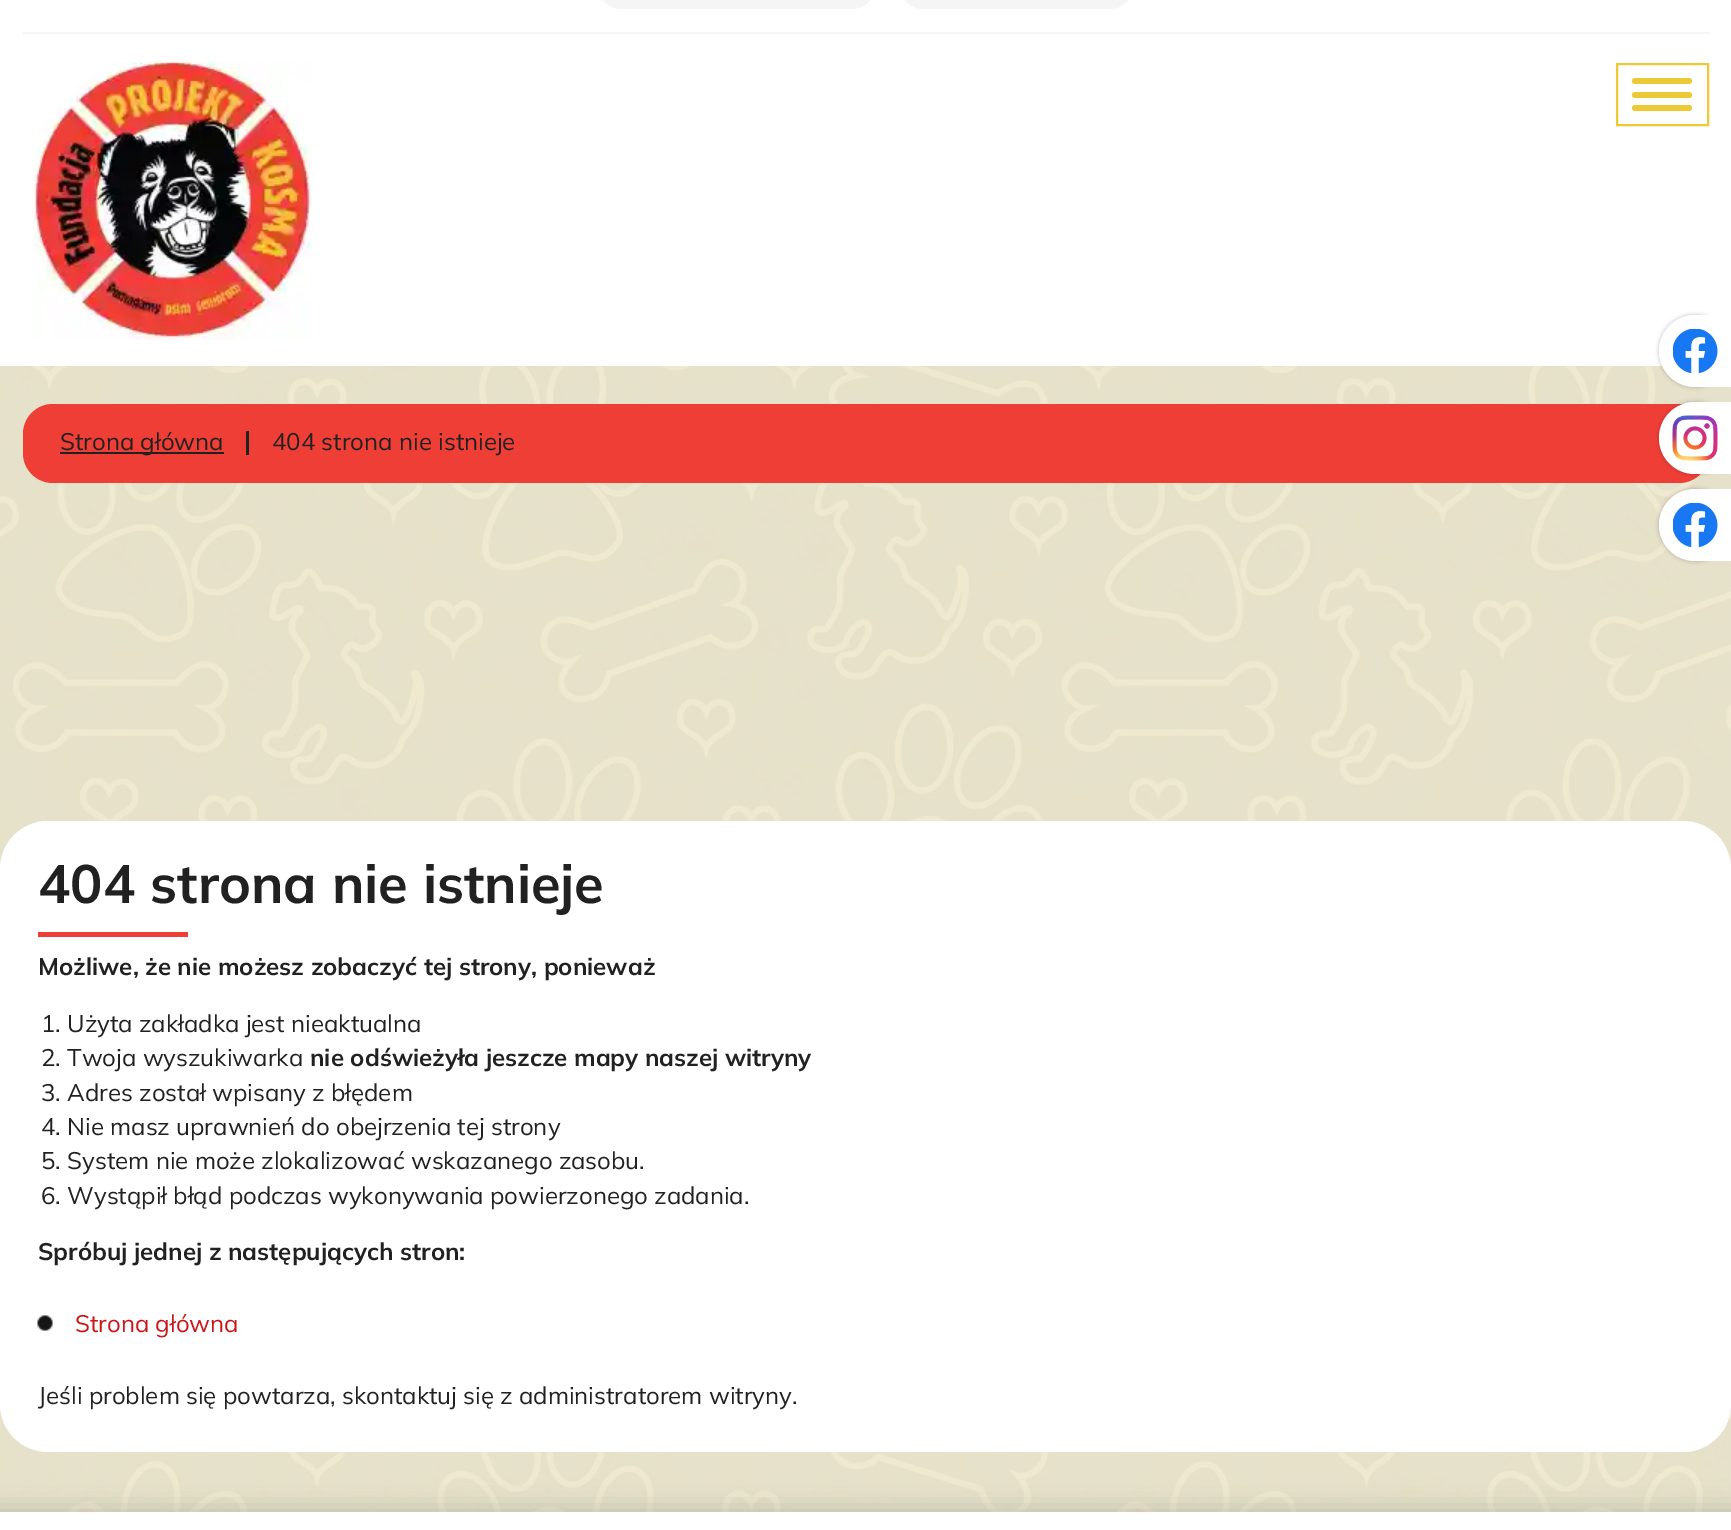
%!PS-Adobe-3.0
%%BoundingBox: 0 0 1731 1530
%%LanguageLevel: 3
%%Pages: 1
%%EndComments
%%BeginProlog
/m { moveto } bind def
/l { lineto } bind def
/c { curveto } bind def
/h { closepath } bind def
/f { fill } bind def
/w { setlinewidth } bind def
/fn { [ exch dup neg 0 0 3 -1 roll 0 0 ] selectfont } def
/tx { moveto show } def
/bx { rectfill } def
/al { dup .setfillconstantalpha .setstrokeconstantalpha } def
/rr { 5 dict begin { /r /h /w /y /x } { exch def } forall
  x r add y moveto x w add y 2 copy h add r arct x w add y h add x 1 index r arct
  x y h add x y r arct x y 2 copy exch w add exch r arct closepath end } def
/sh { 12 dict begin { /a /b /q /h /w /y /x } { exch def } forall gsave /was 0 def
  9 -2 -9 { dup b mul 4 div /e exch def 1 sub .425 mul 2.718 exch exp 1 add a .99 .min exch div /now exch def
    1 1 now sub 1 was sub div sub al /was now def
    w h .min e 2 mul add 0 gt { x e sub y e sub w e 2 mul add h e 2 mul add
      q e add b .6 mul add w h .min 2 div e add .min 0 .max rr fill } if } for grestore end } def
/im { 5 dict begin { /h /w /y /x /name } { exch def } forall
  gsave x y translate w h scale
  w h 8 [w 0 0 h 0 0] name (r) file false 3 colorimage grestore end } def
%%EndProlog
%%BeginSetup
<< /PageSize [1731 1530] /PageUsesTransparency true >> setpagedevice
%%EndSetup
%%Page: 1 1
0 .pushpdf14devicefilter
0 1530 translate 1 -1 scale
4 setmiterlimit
1 setgray
0 0 1731 1530 bx
(image0.raw) 0 366 1731 1146 im
0.961 setgray
597 -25 279 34 24.5 rr f
899 -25 235 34 24.5 rr f
23 32 1686 2 bx
(image1.raw) 33 61 280 279 im
0.925 0.792 0.208 setrgbcolor
2 w
1617 64 91 61 rectstroke
1632 78 60 6 3 rr f
1632 92 60 6 3 rr f
1632 105 60 6 3 rr f
0 setgray
1659 315 72 72 36 2 0.25 sh
1 setgray
1695 315 m 1731 315 l 1731 387 l 1695 387 l 1675 387 1659 371 1659 351 c 1659 331 1675 315 1695 315 c h f
(image2.raw) 1673 329 45 45 im
0.937 0.243 0.212 setrgbcolor
23 404 1686 79 30 rr f
0 setgray
1659 402 72 72 36 2 0.25 sh
1 setgray
1695 402 m 1731 402 l 1731 474 l 1695 474 l 1675 474 1659 458 1659 438 c 1659 418 1675 402 1695 402 c h f
(image3.raw) 1672 415 46 46 im
0 setgray
1659 489 72 72 36 2 0.25 sh
1 setgray
1695 489 m 1731 489 l 1731 561 l 1695 561 l 1675 561 1659 545 1659 525 c 1659 505 1675 489 1695 489 c h f
(image2.raw) 1673 503 45 45 im
0.129 setgray
-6 1506 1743 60 0 12 0.16 sh
1 setgray
0 1512 1731 18 bx
0.129 setgray
60 452 164 2 bx
/Mulish-Regular 24 fn
(Strona główna) 60 450 tx
246 431 3 24 bx
(404 strona nie istnieje) 272 450 tx
1 setgray
0 821 1731 631 48 rr f
/Mulish-Bold 54 fn
0.129 setgray
(404 strona nie istnieje) 38 903 tx
0.937 0.243 0.212 setrgbcolor
38 932 150 5 bx
/Mulish-Bold 24 fn
0.129 setgray
(Możliwe, że nie możesz zobaczyć tej strony, ponieważ) 38 975 tx
/Mulish-Regular 24 fn
(1. Użyta zakładka jest nieaktualna) 41 1032 tx
(2. Twoja wyszukiwarka) 41 1066 tx
/Mulish-Bold 24 fn
(nie odświeżyła jeszcze mapy naszej witryny) 310 1066 tx
/Mulish-Regular 24 fn
(3. Adres został wpisany z błędem) 41 1101 tx
(4. Nie masz uprawnień do obejrzenia tej strony) 41 1135 tx
(5. System nie może zlokalizować wskazanego zasobu.) 41 1169 tx
(6. Wystąpił błąd podczas wykonywania powierzonego zadania.) 41 1204 tx
/Mulish-Bold 24 fn
(Spróbuj jednej z następujących stron:) 38 1260 tx
(image4.raw) 37 1315 16 16 im
/Mulish-Regular 24 fn
0.788 0.086 0.094 setrgbcolor
(Strona główna) 75 1332 tx
0.129 setgray
(Jeśli problem się powtarza, skontaktuj się z administratorem witryny.) 38 1404 tx
.poppdf14devicefilter showpage
%%EOF
